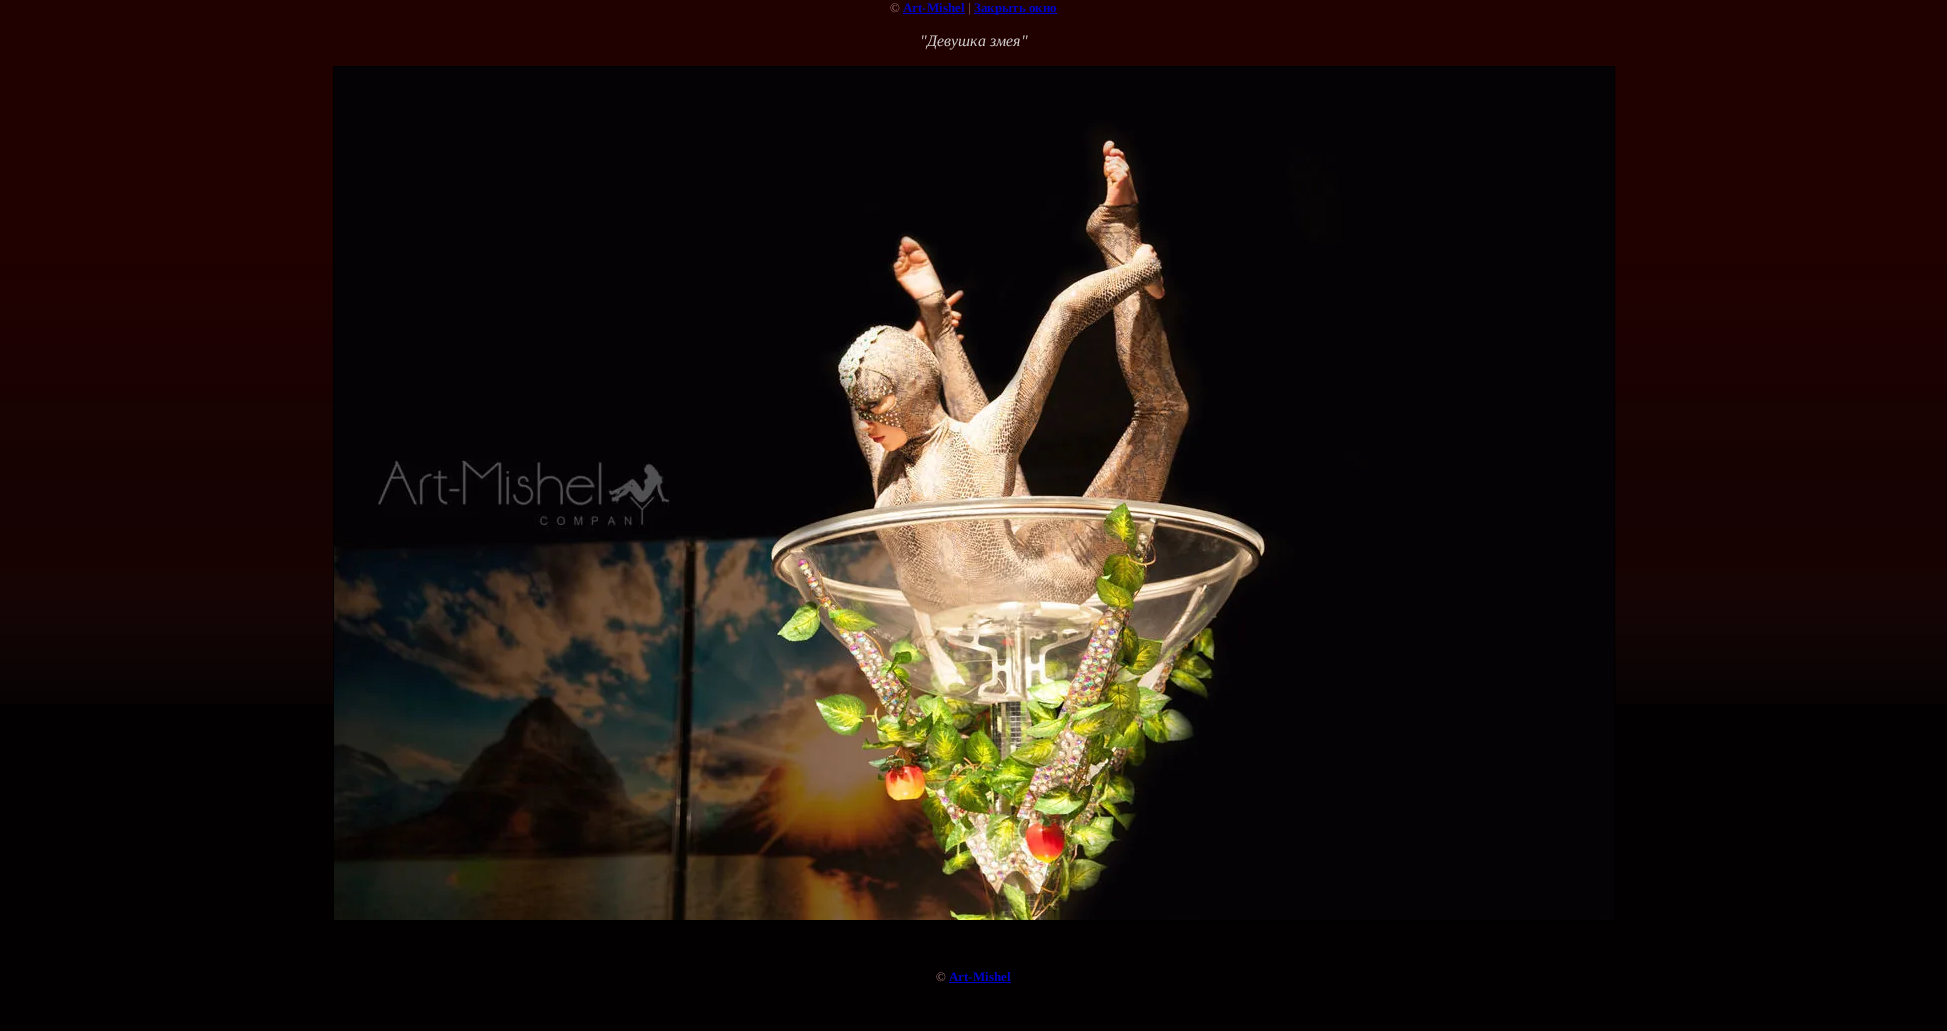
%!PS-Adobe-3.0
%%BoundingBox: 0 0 1947 1031
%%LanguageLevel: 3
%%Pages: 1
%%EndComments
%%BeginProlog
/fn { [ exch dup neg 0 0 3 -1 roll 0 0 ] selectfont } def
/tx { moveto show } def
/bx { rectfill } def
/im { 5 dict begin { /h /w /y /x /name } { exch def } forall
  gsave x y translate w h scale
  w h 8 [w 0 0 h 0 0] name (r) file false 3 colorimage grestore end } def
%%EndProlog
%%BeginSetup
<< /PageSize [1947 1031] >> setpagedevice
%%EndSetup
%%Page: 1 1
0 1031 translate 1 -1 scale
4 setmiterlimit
0.008 0 0 setrgbcolor
0 0 1947 1031 bx
(image0.raw) 0 0 1947 704 im
/LiberationSerif-Regular 13 fn
0.659 0.471 0.482 setrgbcolor
(©) 890 12 tx
/LiberationSerif-Bold 13 fn
0 0 0.8 setrgbcolor
(Art-Mishel) 903 12 tx
903 13 62 1 bx
/LiberationSerif-Regular 13 fn
0.659 0.471 0.482 setrgbcolor
(|) 968 12 tx
0 0 0.8 setrgbcolor
974 13 83 1 bx
/LiberationSerif-Bold 13 fn
(Закрыть окно) 974 12 tx
/LiberationSerif-Italic 16 fn
0.82 0.812 0.812 setrgbcolor
("Девушка змея") 920 46 tx
0 setgray
333.5 66.5 1281 854 rectstroke
(image1.raw) 334 67 1280 853 im
/LiberationSerif-Regular 13 fn
0.659 0.471 0.482 setrgbcolor
(©) 936 981 tx
/LiberationSerif-Bold 13 fn
0 0 0.8 setrgbcolor
(Art-Mishel) 949 981 tx
949 982 62 1 bx
showpage
%%EOF
